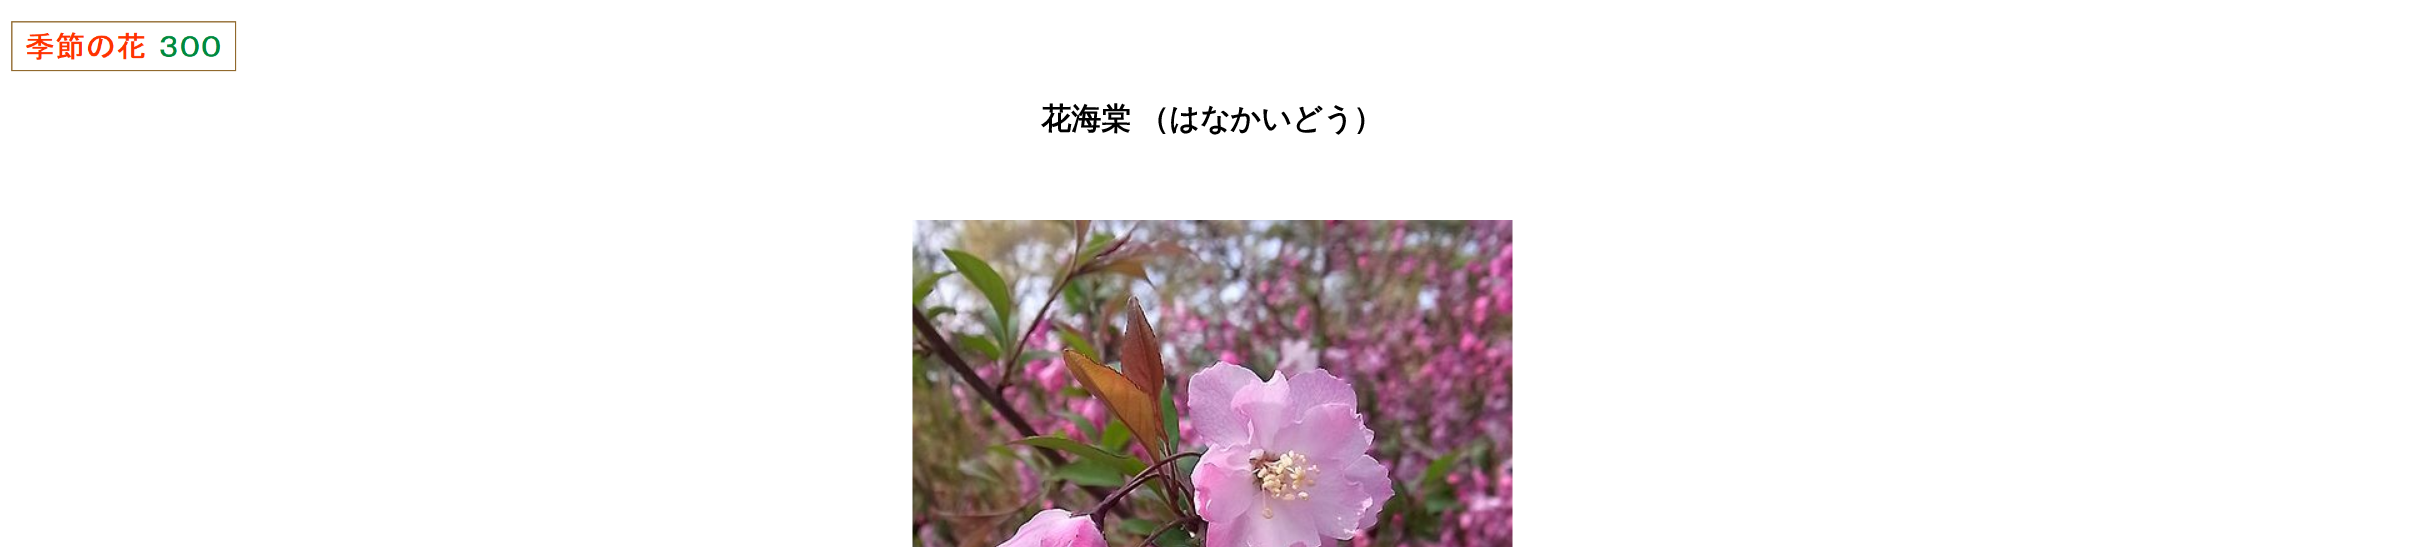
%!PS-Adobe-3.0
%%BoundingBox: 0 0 2424 547
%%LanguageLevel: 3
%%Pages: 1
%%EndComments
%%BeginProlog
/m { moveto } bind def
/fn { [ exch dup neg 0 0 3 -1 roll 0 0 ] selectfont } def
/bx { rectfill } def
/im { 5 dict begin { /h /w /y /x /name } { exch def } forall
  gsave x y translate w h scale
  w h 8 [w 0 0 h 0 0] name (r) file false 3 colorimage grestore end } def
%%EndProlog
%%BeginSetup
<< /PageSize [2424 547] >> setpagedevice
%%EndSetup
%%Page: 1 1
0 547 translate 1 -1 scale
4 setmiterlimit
1 setgray
0 0 2424 547 bx
(image0.raw) 11 21 226 51 im
/WenQuanYiZenHei-Bold 30 fn
0 setgray
1041 129 m -1 0 32 (花海棠 （はなかいどう）) widthshow
(image1.raw) 912 220 601 327 im
showpage
%%EOF
